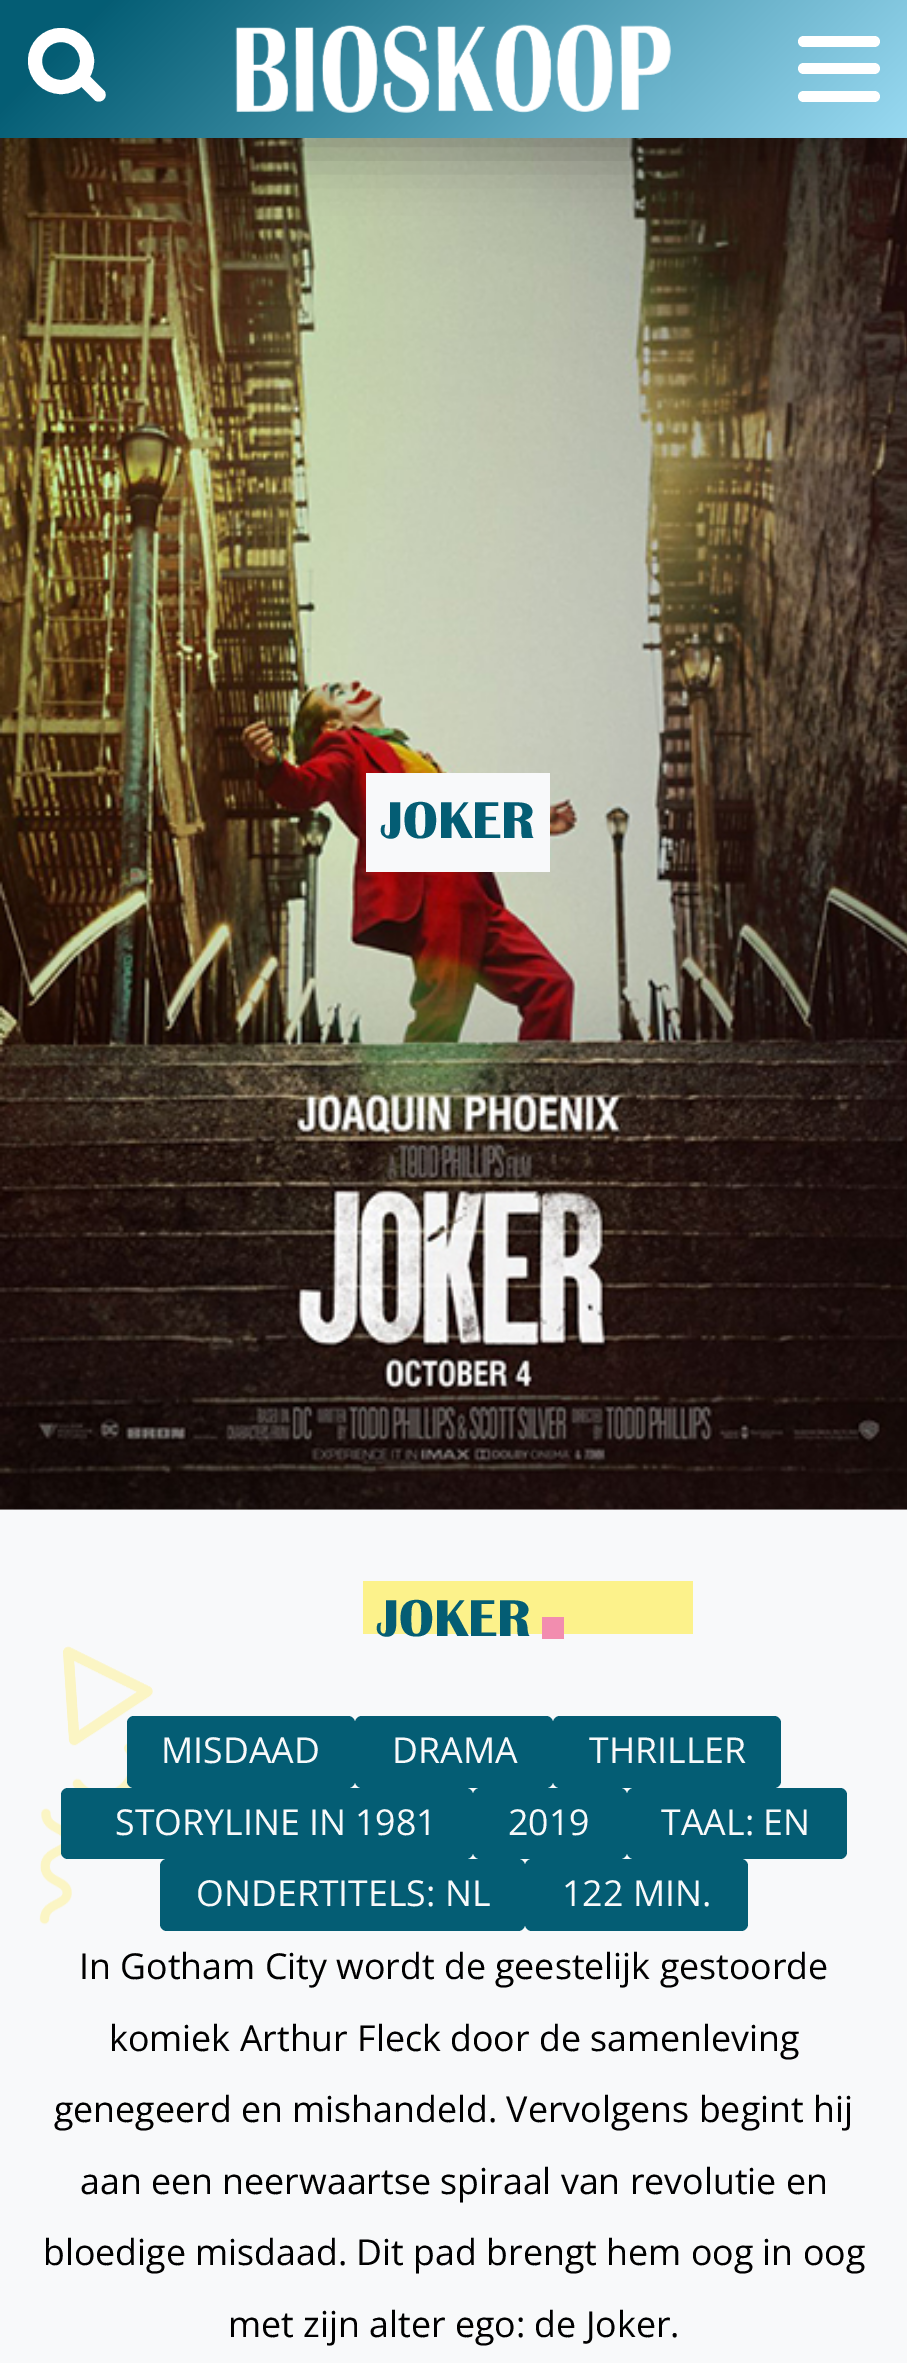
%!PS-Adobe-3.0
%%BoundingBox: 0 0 907 2363
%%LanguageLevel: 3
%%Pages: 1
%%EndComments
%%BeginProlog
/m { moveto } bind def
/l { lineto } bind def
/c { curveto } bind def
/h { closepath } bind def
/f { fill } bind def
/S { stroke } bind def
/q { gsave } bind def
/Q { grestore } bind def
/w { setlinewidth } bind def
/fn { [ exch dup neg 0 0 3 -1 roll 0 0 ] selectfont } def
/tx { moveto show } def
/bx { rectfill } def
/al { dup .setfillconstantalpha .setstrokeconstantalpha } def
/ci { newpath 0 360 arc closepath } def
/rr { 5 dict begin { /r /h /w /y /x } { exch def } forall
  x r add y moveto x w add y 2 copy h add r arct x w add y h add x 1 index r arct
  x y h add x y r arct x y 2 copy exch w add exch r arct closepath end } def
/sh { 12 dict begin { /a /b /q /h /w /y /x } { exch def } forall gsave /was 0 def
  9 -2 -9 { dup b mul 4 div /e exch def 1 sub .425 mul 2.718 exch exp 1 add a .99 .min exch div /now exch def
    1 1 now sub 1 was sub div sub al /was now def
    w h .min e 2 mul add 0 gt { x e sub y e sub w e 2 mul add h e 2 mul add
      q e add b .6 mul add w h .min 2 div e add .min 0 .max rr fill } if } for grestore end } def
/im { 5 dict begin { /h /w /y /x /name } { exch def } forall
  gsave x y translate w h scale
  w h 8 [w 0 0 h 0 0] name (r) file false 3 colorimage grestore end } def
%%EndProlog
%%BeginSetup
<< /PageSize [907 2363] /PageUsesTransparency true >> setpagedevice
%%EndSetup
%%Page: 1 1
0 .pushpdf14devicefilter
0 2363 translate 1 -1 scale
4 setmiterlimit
0.973 0.976 0.98 setrgbcolor
0 0 907 2363 bx
(image1.raw) 0 138 907 1372 im
0 setgray
0 17 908 137 0 27.5 0.25 sh
q 0 0 m 907 0 l 907 138 l 0 138 l h clip newpath
<< /ShadingType 2 /ColorSpace /DeviceRGB /Coords [715 330 193 -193] /Extend [true true] /Function << /FunctionType 3 /Domain [0 1] /Functions [<< /FunctionType 2 /Domain [0 1] /C0 [0.6 0.855 0.949] /C1 [0.016 0.365 0.455] /N 1 >> << /FunctionType 2 /Domain [0 1] /C0 [0.016 0.365 0.455] /C1 [0.016 0.365 0.455] /N 1 >>] /Bounds [0.9] /Encode [0 1 0 1] >> >> shfill Q
1 setgray
14 w
61 61 26 ci S
90 76.5 m 104.5 91 l 106 93.5 106 96.5 104.5 98.5 c 102.5 101.5 98.5 102.5 95 100.5 c 80.5 86 l 74.5 79.5 84 70 90 76.5 c h f
(image0.raw) 235 24 436 89 im
798 36 82 11 5.5 rr f
798 63 82 11 5.5 rr f
798 91 82 11 5.5 rr f
0.973 0.976 0.98 setrgbcolor
366 773 184 99 bx
/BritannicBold-Bold 53.5 fn
0.016 0.365 0.455 setrgbcolor
(JOKER) 381 838 tx
0.988 0.949 0.545 setrgbcolor
363 1581 330 53 bx
0.016 0.365 0.455 setrgbcolor
(JOKER) 377 1636 tx
0.949 0.553 0.686 setrgbcolor
542 1617 22 22 bx
(image3.raw) 72 1743 59 45 im
(image2.raw) 63 1646 90 100 im
0.016 0.365 0.455 setrgbcolor
127 1716 228 72 7 rr f
/OpenSans-Regular 35.75 fn
0.973 0.976 0.98 setrgbcolor
(MISDAAD) 161 1763 tx
0.016 0.365 0.455 setrgbcolor
355 1716 198 72 7 rr f
0.973 0.976 0.98 setrgbcolor
(DRAMA) 392 1763 tx
0.016 0.365 0.455 setrgbcolor
553 1716 228 72 7 rr f
0.973 0.976 0.98 setrgbcolor
(THRILLER) 589 1763 tx
(image4.raw) 39 1808 33 117 im
0.016 0.365 0.455 setrgbcolor
61 1788 412 71 7 rr f
0.973 0.976 0.98 setrgbcolor
(STORYLINE IN 1981) 115 1835 tx
0.016 0.365 0.455 setrgbcolor
473 1788 154 71 7 rr f
0.973 0.976 0.98 setrgbcolor
(2019) 508 1835 tx
0.016 0.365 0.455 setrgbcolor
627 1788 220 71 7 rr f
0.973 0.976 0.98 setrgbcolor
(TAAL: EN) 661 1835 tx
0.016 0.365 0.455 setrgbcolor
160 1859 365 72 7 rr f
0.973 0.976 0.98 setrgbcolor
(ONDERTITELS: NL) 196 1906 tx
0.016 0.365 0.455 setrgbcolor
525 1859 223 72 7 rr f
0.973 0.976 0.98 setrgbcolor
(122 MIN.) 562 1906 tx
0 setgray
(In Gotham City wordt de geestelijk gestoorde) 79 1979 tx
(komiek Arthur Fleck door de samenleving) 109 2051 tx
(genegeerd en mishandeld. Vervolgens begint hij) 54 2122 tx
(aan een neerwaartse spiraal van revolutie en) 80 2194 tx
(bloedige misdaad. Dit pad brengt hem oog in oog) 43 2265 tx
(met zijn alter ego: de Joker.) 228 2337 tx
.poppdf14devicefilter showpage
%%EOF
